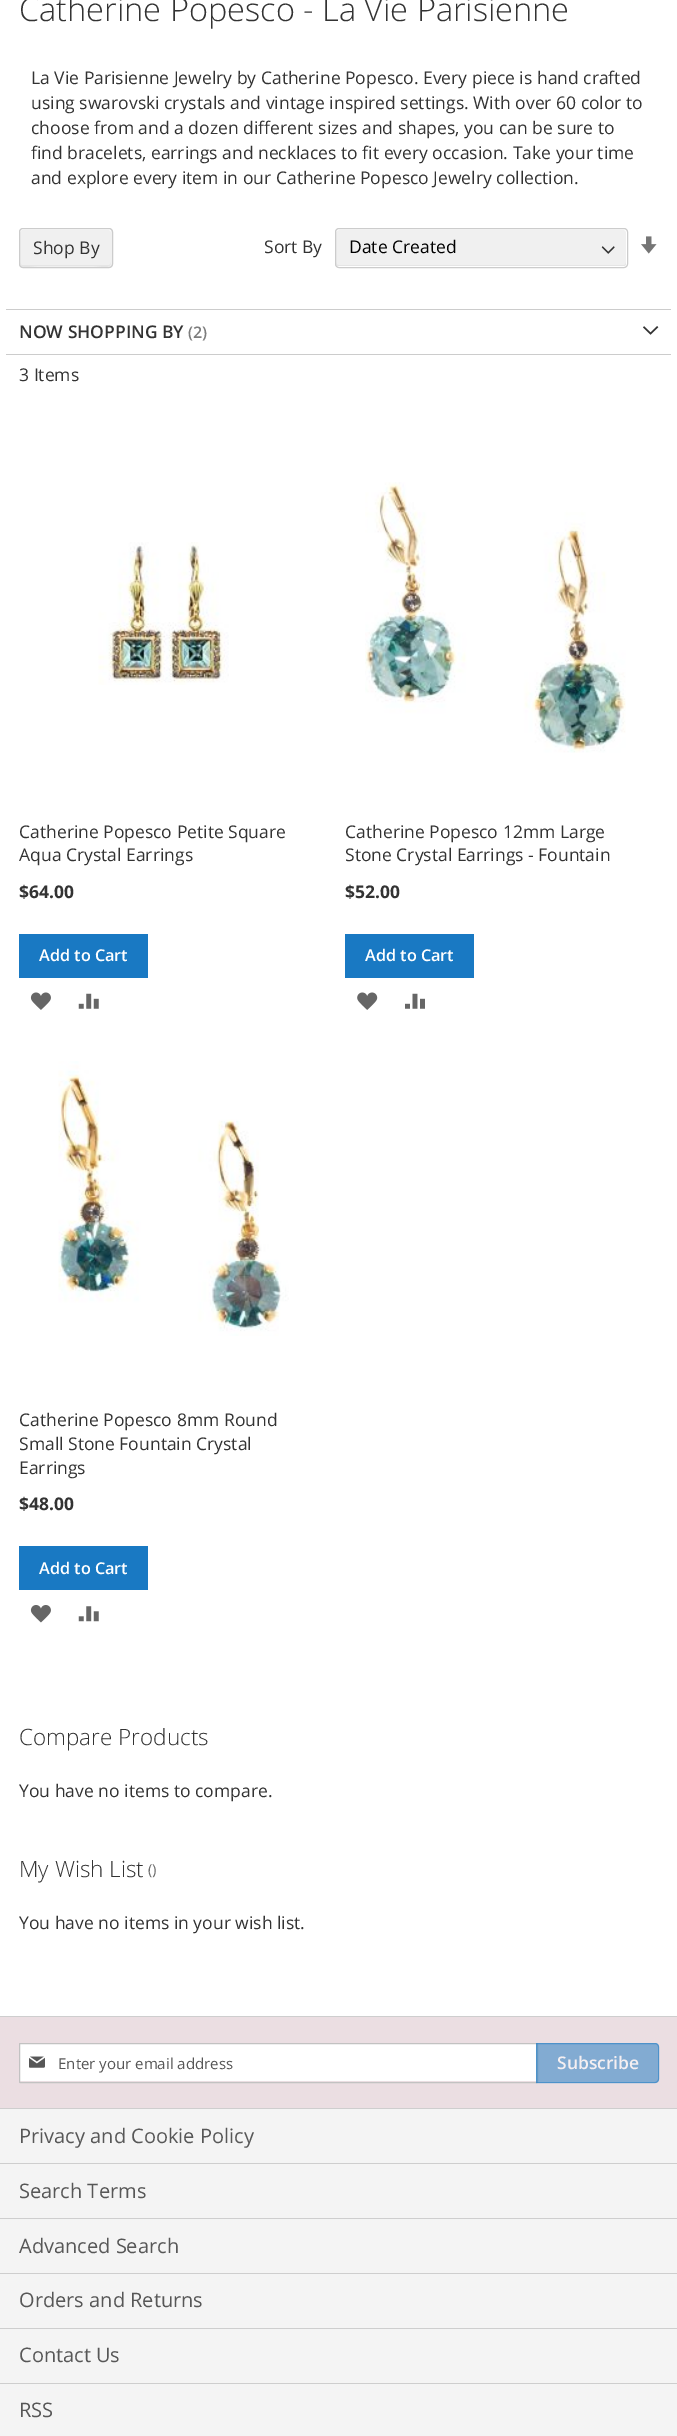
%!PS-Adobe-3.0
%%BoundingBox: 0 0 677 2436
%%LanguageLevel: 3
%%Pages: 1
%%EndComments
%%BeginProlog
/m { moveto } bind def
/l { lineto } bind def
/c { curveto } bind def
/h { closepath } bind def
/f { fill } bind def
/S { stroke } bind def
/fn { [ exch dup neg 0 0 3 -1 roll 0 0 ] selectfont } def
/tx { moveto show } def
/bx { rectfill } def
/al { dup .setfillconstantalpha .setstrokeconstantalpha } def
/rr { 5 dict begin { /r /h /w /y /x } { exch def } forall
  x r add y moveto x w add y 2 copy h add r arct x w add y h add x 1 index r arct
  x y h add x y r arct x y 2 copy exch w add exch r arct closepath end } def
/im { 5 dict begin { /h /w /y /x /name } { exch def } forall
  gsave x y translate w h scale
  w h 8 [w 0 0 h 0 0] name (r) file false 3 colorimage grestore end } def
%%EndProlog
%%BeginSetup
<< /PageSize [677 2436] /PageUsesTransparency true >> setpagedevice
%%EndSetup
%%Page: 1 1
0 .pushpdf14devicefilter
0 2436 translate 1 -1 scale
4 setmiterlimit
1 setgray
0 0 677 2436 bx
/OpenSans-Light 32.5 fn
0.2 setgray
(Catherine Popesco - La Vie Parisienne) 19 21 tx
/OpenSans-Regular 17.5 fn
(La Vie Parisienne Jewelry by Catherine Popesco. Every piece is hand crafted) 31 84 tx
(using swarovski crystals and vintage inspired settings. With over 60 color to) 31 109 tx
(choose from and a dozen different sizes and shapes, you can be sure to) 31 134 tx
(find bracelets, earrings and necklaces to fit every occasion. Take your time) 31 159 tx
(and explore every item in our Catherine Popesco Jewelry collection.) 31 184 tx
(Sort By) 264 253 tx
0.941 setgray
336 229 290 37 2.5 rr f
(image0.raw) 601 246 14 8 im
0.3 al
0.8 setgray
336 262 m 336 264 336 266 338 266 c 624 266 l 626 266 626 264 626 262 c 626 264 625 265 624 265 c 339 265 l 337 265 336 264 336 262 c h f
1 al
1 setgray
339 230 m 624 230 l 625 230 626 231 626 232 c 626 231 626 230 624 229 c 338 229 l 336 231 l 336 232 l 336 231 337 230 339 230 c h f
0.8 setgray
335.5 228.5 292 39 3.5 rr S
0 setgray
(Date Created) 349 253 tx
(image1.raw) 641 236 16 18 im
0.2 setgray
(3 Items) 19 381 tx
(image2.raw) 98 542 131 143 im
(Catherine Popesco Petite Square) 19 838 tx
(Aqua Crystal Earrings) 19 861 tx
/OpenSans-Bold 17.5 fn
($64.00) 19 898 tx
0.098 0.475 0.765 setrgbcolor
19 934 129 44 bx
/OpenSans-SemiBold 16.25 fn
1 setgray
(Add to Cart) 39 961 tx
(image3.raw) 30 992 21 18 im
(image4.raw) 78 993 21 16 im
(image5.raw) 365 482 261 271 im
/OpenSans-Regular 17.5 fn
0.2 setgray
(Catherine Popesco 12mm Large) 345 838 tx
(Stone Crystal Earrings - Fountain) 345 861 tx
/OpenSans-Bold 17.5 fn
($52.00) 345 898 tx
0.098 0.475 0.765 setrgbcolor
345 934 129 44 bx
/OpenSans-SemiBold 16.25 fn
1 setgray
(Add to Cart) 365 961 tx
(image6.raw) 357 992 21 18 im
(image7.raw) 405 993 20 16 im
(image8.raw) 58 1061 231 275 im
/OpenSans-Regular 17.5 fn
0.2 setgray
(Catherine Popesco 8mm Round) 19 1426 tx
(Small Stone Fountain Crystal) 19 1450 tx
(Earrings) 19 1474 tx
/OpenSans-Bold 17.5 fn
($48.00) 19 1510 tx
0.098 0.475 0.765 setrgbcolor
19 1546 129 44 bx
/OpenSans-SemiBold 16.25 fn
1 setgray
(Add to Cart) 39 1574 tx
(image9.raw) 30 1605 21 18 im
(image10.raw) 78 1606 21 16 im
0.941 setgray
19 228 94 40 4 rr f
0.898 setgray
20 262 m 20 270 31 266 37 266 c 94 266 l 100 266 111 270 111 262 c 111 264 110 265 109 265 c 22 265 l 21 265 20 264 20 262 c h f
1 setgray
22 230 m 109 230 l 110 230 111 231 111 232 c 111 231 110 229 109 229 c 22 229 l 21 229 20 231 20 232 c 20 231 21 230 22 230 c h f
0.8 setgray
19.5 228.5 93 39 3.5 rr S
/OpenSans-Regular 17.5 fn
0.2 setgray
(Shop By) 33 254 tx
0.8 setgray
6 309 665 1 bx
6 354 665 1 bx
/OpenSans-SemiBold 17.5 fn
0.2 setgray
(NOW SHOPPING BY) 19 338 tx
/OpenSans-SemiBold 16 fn
0.49 setgray
(\(2\)) 188 338 tx
(image11.raw) 643 326 16 9 im
/OpenSans-Light 22.5 fn
0.2 setgray
(Compare Products) 19 1745 tx
/OpenSans-Regular 17.5 fn
(You have no items to compare.) 19 1797 tx
/OpenSans-Light 22.5 fn
(My Wish List) 19 1877 tx
/OpenSans-Regular 15 fn
0.427 setgray
(\(\)) 148 1875 tx
/OpenSans-Regular 17.5 fn
0.2 setgray
(You have no items in your wish list.) 19 1929 tx
0.922 0.871 0.886 setrgbcolor
0 2017 677 91 bx
0.808 setgray
0 2016 677 1 bx
1 setgray
20 2044 516 37 bx
0.761 setgray
19.5 2043.5 518 39 0.5 rr S
(image12.raw) 29 2056 16 12 im
/OpenSans-Regular 15 fn
0.341 setgray
(Enter your email address) 58 2069 tx
0.5 al
0.098 0.475 0.765 setrgbcolor
536 2043 m 655 2043 l 657 2043 659 2045 659 2047 c 659 2079 l 659 2081 657 2083 655 2083 c 536 2083 l h f
536.5 2043.5 m 655 2043.5 l 657 2043.5 658.5 2045 658.5 2047 c 658.5 2079 l 658.5 2081 657 2082.5 655 2082.5 c 536.5 2082.5 l h S
/OpenSans-SemiBold 17.5 fn
1 al
0.961 0.937 0.945 setrgbcolor
(Subscribe) 557 2069 tx
0.957 setgray
0 2109 677 54 bx
0.808 setgray
0 2108 677 1 bx
/OpenSans-Regular 20 fn
0.341 setgray
(Privacy and Cookie Policy) 19 2143 tx
0.957 setgray
0 2164 677 54 bx
0.808 setgray
0 2163 677 1 bx
0.341 setgray
(Search Terms) 19 2198 tx
0.957 setgray
0 2219 677 54 bx
0.808 setgray
0 2218 677 1 bx
0.341 setgray
(Advanced Search) 19 2253 tx
0.957 setgray
0 2274 677 54 bx
0.808 setgray
0 2273 677 1 bx
0.341 setgray
(Orders and Returns) 19 2307 tx
0.957 setgray
0 2329 677 54 bx
0.808 setgray
0 2328 677 1 bx
0.341 setgray
(Contact Us) 19 2362 tx
0.957 setgray
0 2384 677 52 bx
0.808 setgray
0 2383 677 1 bx
0.341 setgray
(RSS) 19 2417 tx
.poppdf14devicefilter showpage
%%EOF
